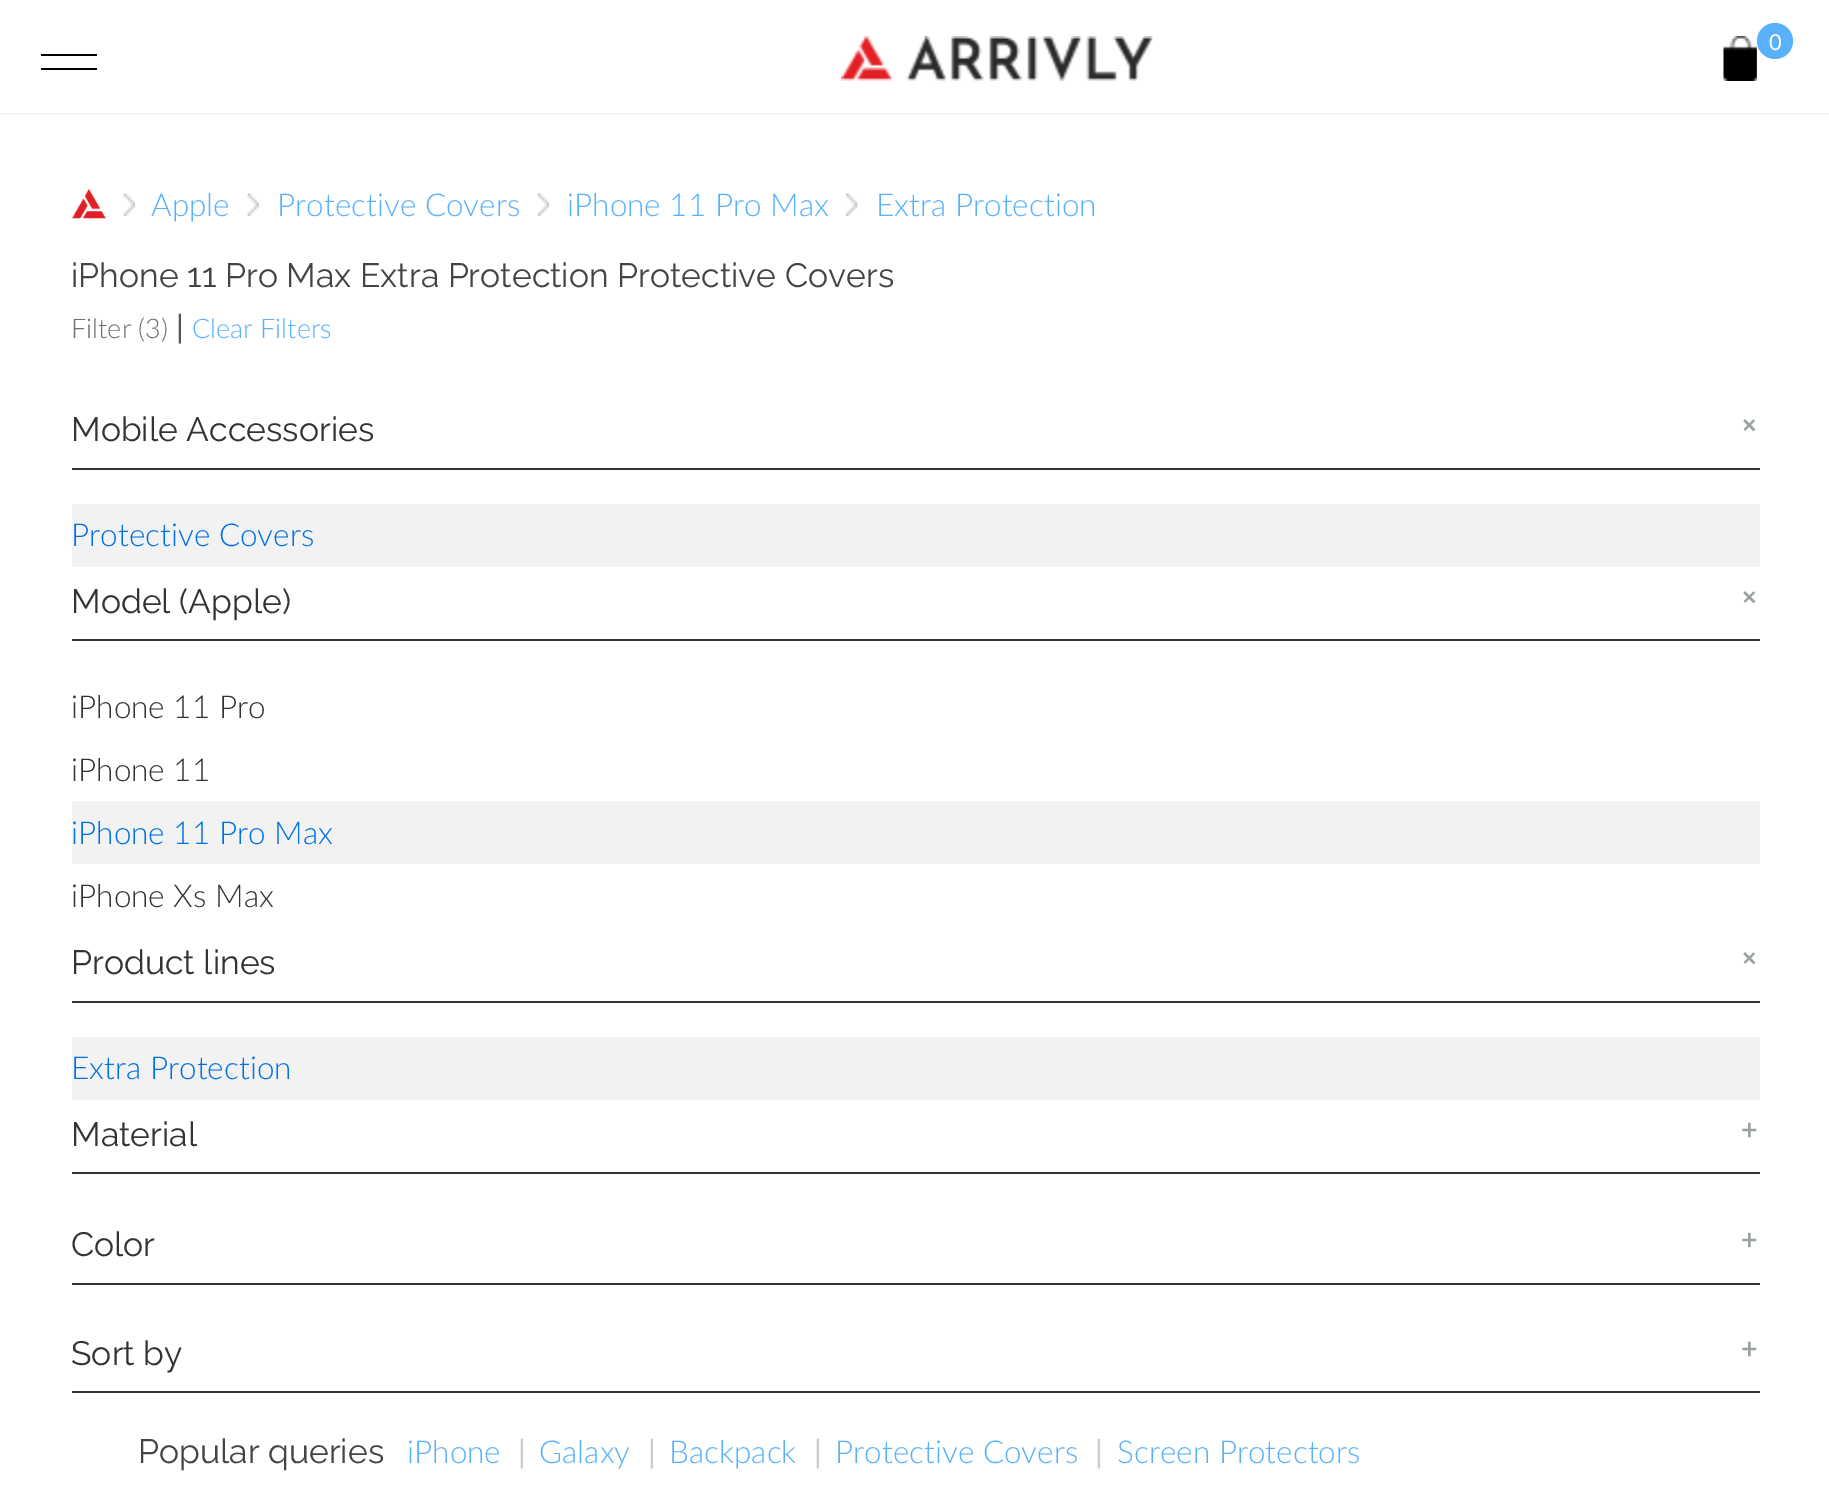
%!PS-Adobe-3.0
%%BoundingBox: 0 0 1829 1492
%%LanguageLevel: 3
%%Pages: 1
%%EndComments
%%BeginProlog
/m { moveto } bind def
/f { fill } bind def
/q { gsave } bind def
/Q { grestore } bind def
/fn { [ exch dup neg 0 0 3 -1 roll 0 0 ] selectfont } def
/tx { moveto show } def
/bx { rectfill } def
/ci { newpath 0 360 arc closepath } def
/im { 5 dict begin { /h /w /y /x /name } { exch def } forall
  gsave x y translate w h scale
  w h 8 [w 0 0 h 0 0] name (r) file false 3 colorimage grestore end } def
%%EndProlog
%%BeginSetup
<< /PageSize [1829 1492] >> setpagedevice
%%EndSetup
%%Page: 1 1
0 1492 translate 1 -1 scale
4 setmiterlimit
1 setgray
0 0 1829 1492 bx
0.953 0.961 0.961 setrgbcolor
0 113 1829 2 bx
0 setgray
41 54 56 2 bx
41 68 56 2 bx
(image0.raw) 841 36 312 45 im
(image1.raw) 1723 36 34 45 im
0.345 0.694 0.988 setrgbcolor
1775 41 18 ci f
/Lato-Regular 22 fn
1 setgray
(0) 1769 50 tx
(image2.raw) 72 189 34 30 im
(image3.raw) 123 193 12 23 im
/Lato-Light 31.5 fn
0.345 0.694 0.988 setrgbcolor
(Apple) 151 216 tx
(image4.raw) 247 193 12 23 im
(Protective Covers) 277 216 tx
(image3.raw) 537 193 12 23 im
(iPhone 11 Pro Max) 567 216 tx
(image5.raw) 846 193 12 23 im
(Extra Protection) 876 216 tx
/Raleway-Regular 33.75 fn
0.267 setgray
(iPhone 11 Pro Max Extra Protection Protective Covers) 71 287 tx
/Lato-Light 27 fn
0.431 0.431 0.451 setrgbcolor
(Filter \(3\)) 71 338 tx
/Lato-Regular 31.5 fn
0.333 setgray
(|) 176 338 tx
/Lato-Light 27 fn
0.345 0.694 0.988 setrgbcolor
(Clear Filters) 192 338 tx
0.2 setgray
72 468 1688 2 bx
/Raleway-Regular 33.75 fn
(Mobile Accessories) 71 441 tx
/Raleway-Regular 45 fn
0.6 0.639 0.643 setrgbcolor
q 1754 443 translate -45 rotate 0 0 m (+) show Q
0.949 setgray
72 504 1688 63 bx
/Lato-Light 31.5 fn
0 0.443 0.89 setrgbcolor
(Protective Covers) 71 546 tx
0.2 setgray
72 639 1688 2 bx
/Raleway-Regular 33.75 fn
(Model \(Apple\)) 71 613 tx
/Raleway-Regular 45 fn
0.6 0.639 0.643 setrgbcolor
q 1754 615 translate -45 rotate 0 0 m (+) show Q
/Lato-Light 31.5 fn
0.2 setgray
(iPhone 11 Pro) 71 718 tx
(iPhone 11) 71 781 tx
0.949 setgray
72 801 1688 63 bx
0 0.443 0.89 setrgbcolor
(iPhone 11 Pro Max) 71 844 tx
0.2 setgray
(iPhone Xs Max) 71 907 tx
72 1001 1688 2 bx
/Raleway-Regular 33.75 fn
(Product lines) 71 974 tx
/Raleway-Regular 45 fn
0.6 0.639 0.643 setrgbcolor
q 1754 976 translate -45 rotate 0 0 m (+) show Q
0.949 setgray
72 1037 1688 63 bx
/Lato-Light 31.5 fn
0 0.443 0.89 setrgbcolor
(Extra Protection) 71 1079 tx
0.2 setgray
72 1172 1688 2 bx
/Raleway-Regular 33.75 fn
(Material) 71 1146 tx
/Raleway-Regular 45 fn
0.6 0.639 0.643 setrgbcolor
(+) 1740 1146 tx
0.2 setgray
72 1283 1688 2 bx
/Raleway-Regular 33.75 fn
(Color) 71 1256 tx
/Raleway-Regular 45 fn
0.6 0.639 0.643 setrgbcolor
(+) 1740 1256 tx
0.2 setgray
72 1391 1688 2 bx
/Raleway-Regular 33.75 fn
(Sort by) 71 1365 tx
/Raleway-Regular 45 fn
0.6 0.639 0.643 setrgbcolor
(+) 1740 1365 tx
/Raleway-Regular 33.75 fn
0.267 setgray
(Popular queries) 138 1463 tx
/Lato-Light 31.5 fn
0.345 0.694 0.988 setrgbcolor
(iPhone) 407 1463 tx
/Lato-Regular 31.5 fn
0.8 setgray
(|) 518 1463 tx
/Lato-Light 31.5 fn
0.345 0.694 0.988 setrgbcolor
(Galaxy) 539 1463 tx
/Lato-Regular 31.5 fn
0.8 setgray
(|) 648 1463 tx
/Lato-Light 31.5 fn
0.345 0.694 0.988 setrgbcolor
(Backpack) 669 1463 tx
/Lato-Regular 31.5 fn
0.8 setgray
(|) 814 1463 tx
/Lato-Light 31.5 fn
0.345 0.694 0.988 setrgbcolor
(Protective Covers) 835 1463 tx
/Lato-Regular 31.5 fn
0.8 setgray
(|) 1095 1463 tx
/Lato-Light 31.5 fn
0.345 0.694 0.988 setrgbcolor
(Screen Protectors) 1117 1463 tx
showpage
%%EOF
